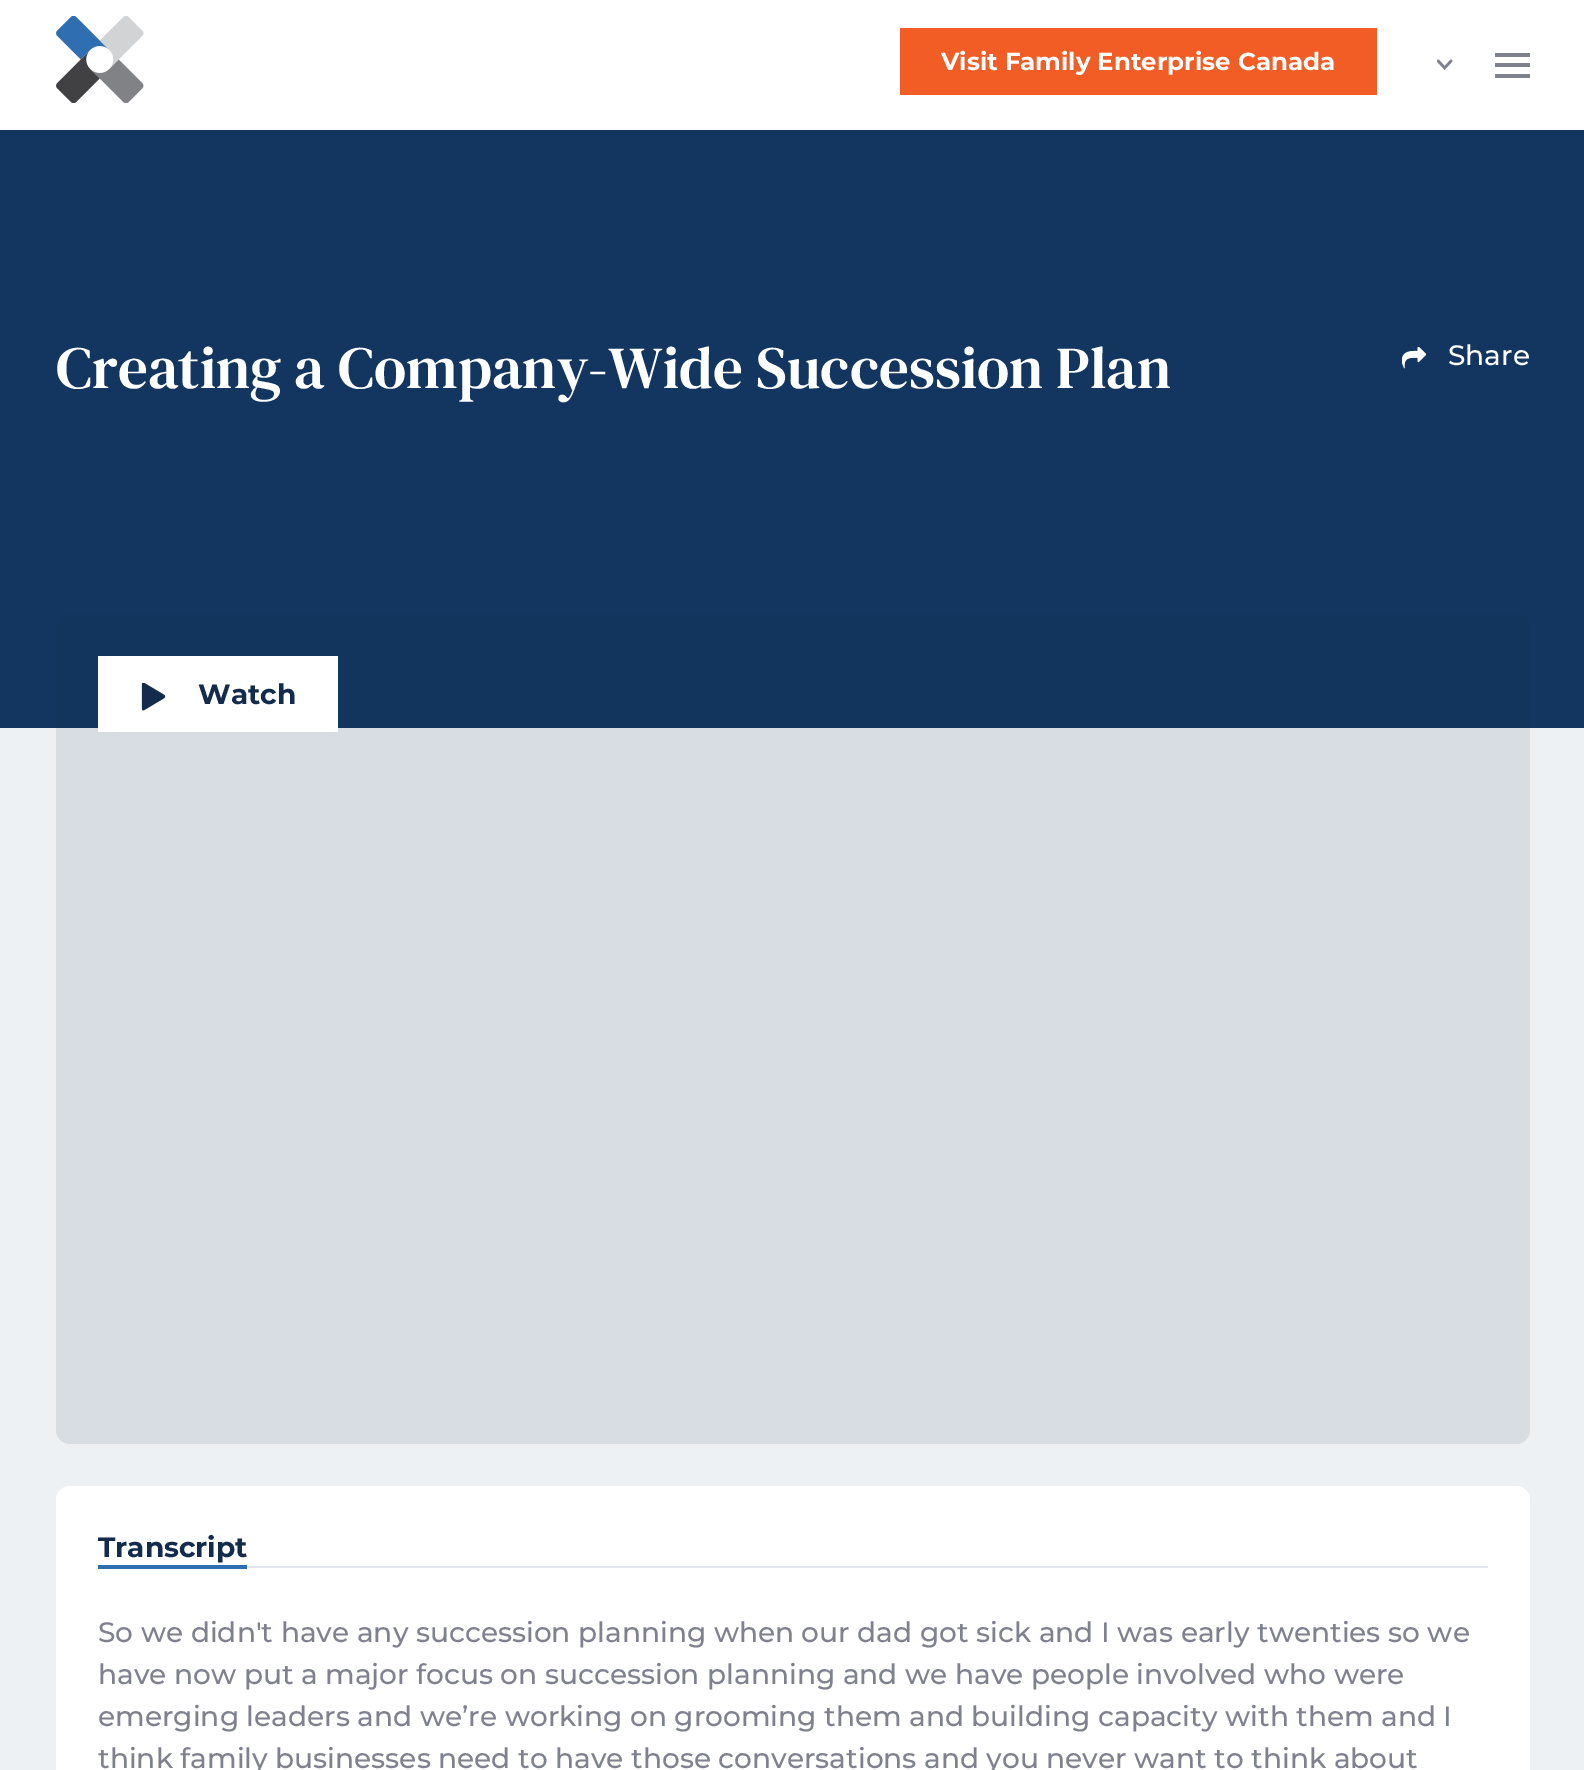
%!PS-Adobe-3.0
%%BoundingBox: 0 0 1584 1770
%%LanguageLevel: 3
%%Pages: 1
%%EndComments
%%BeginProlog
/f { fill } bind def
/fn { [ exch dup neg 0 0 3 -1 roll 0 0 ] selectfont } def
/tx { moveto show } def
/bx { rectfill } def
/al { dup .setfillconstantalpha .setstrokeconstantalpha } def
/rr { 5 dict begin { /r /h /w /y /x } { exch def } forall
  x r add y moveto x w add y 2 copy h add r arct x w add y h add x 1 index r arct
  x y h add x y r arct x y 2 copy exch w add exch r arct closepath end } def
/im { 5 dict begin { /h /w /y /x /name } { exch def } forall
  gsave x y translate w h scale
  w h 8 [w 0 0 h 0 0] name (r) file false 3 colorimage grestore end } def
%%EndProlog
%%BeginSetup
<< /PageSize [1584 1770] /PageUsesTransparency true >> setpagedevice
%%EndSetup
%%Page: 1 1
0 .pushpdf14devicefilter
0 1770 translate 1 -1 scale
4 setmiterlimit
0.071 0.212 0.373 setrgbcolor
0 0 1584 1770 bx
1 setgray
0 0 1584 130 bx
(image0.raw) 56 16 88 87 im
0.945 0.365 0.141 setrgbcolor
900 28 477 67 bx
/Montserrat-Bold 24.5 fn
1 setgray
(Visit Family Enterprise Canada) 941 70 tx
(image1.raw) 1437 59 16 11 im
0.498 0.506 0.561 setrgbcolor
1495 74 35 4 bx
1495 53 35 4 bx
1495 63 35 4 bx
/DMSerifText-Regular 59.5 fn
1 setgray
(Creating a Company-Wide Succession Plan) 56 388 tx
(image2.raw) 1402 347 24 22 im
/Montserrat-Medium 28 fn
(Share) 1448 365 tx
0.933 0.945 0.957 setrgbcolor
0 728 1584 1042 bx
0.1 al
0.075 0.169 0.298 setrgbcolor
56 614 1474 830 14 rr f
1 al
1 setgray
98 656 240 76 bx
(image3.raw) 141 683 25 28 im
/Montserrat-Bold 28 fn
0.075 0.169 0.298 setrgbcolor
(Watch) 198 704 tx
1 setgray
56 1486 1474 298 14 rr f
0.184 0.431 0.694 setrgbcolor
98 1565 149 4 bx
0.075 0.169 0.298 setrgbcolor
(Transcript) 98 1557 tx
0.89 0.906 0.929 setrgbcolor
247 1566 1241 2 bx
/Montserrat-Medium 28 fn
0.498 0.506 0.561 setrgbcolor
(So we didn't have any succession planning when our dad got sick and I was early twenties so we) 98 1642 tx
(have now put a major focus on succession planning and we have people involved who were) 98 1684 tx
(emerging leaders and we’re working on grooming them and building capacity with them and I) 98 1726 tx
(think family businesses need to have those conversations and you never want to think about) 98 1768 tx
.poppdf14devicefilter showpage
%%EOF
